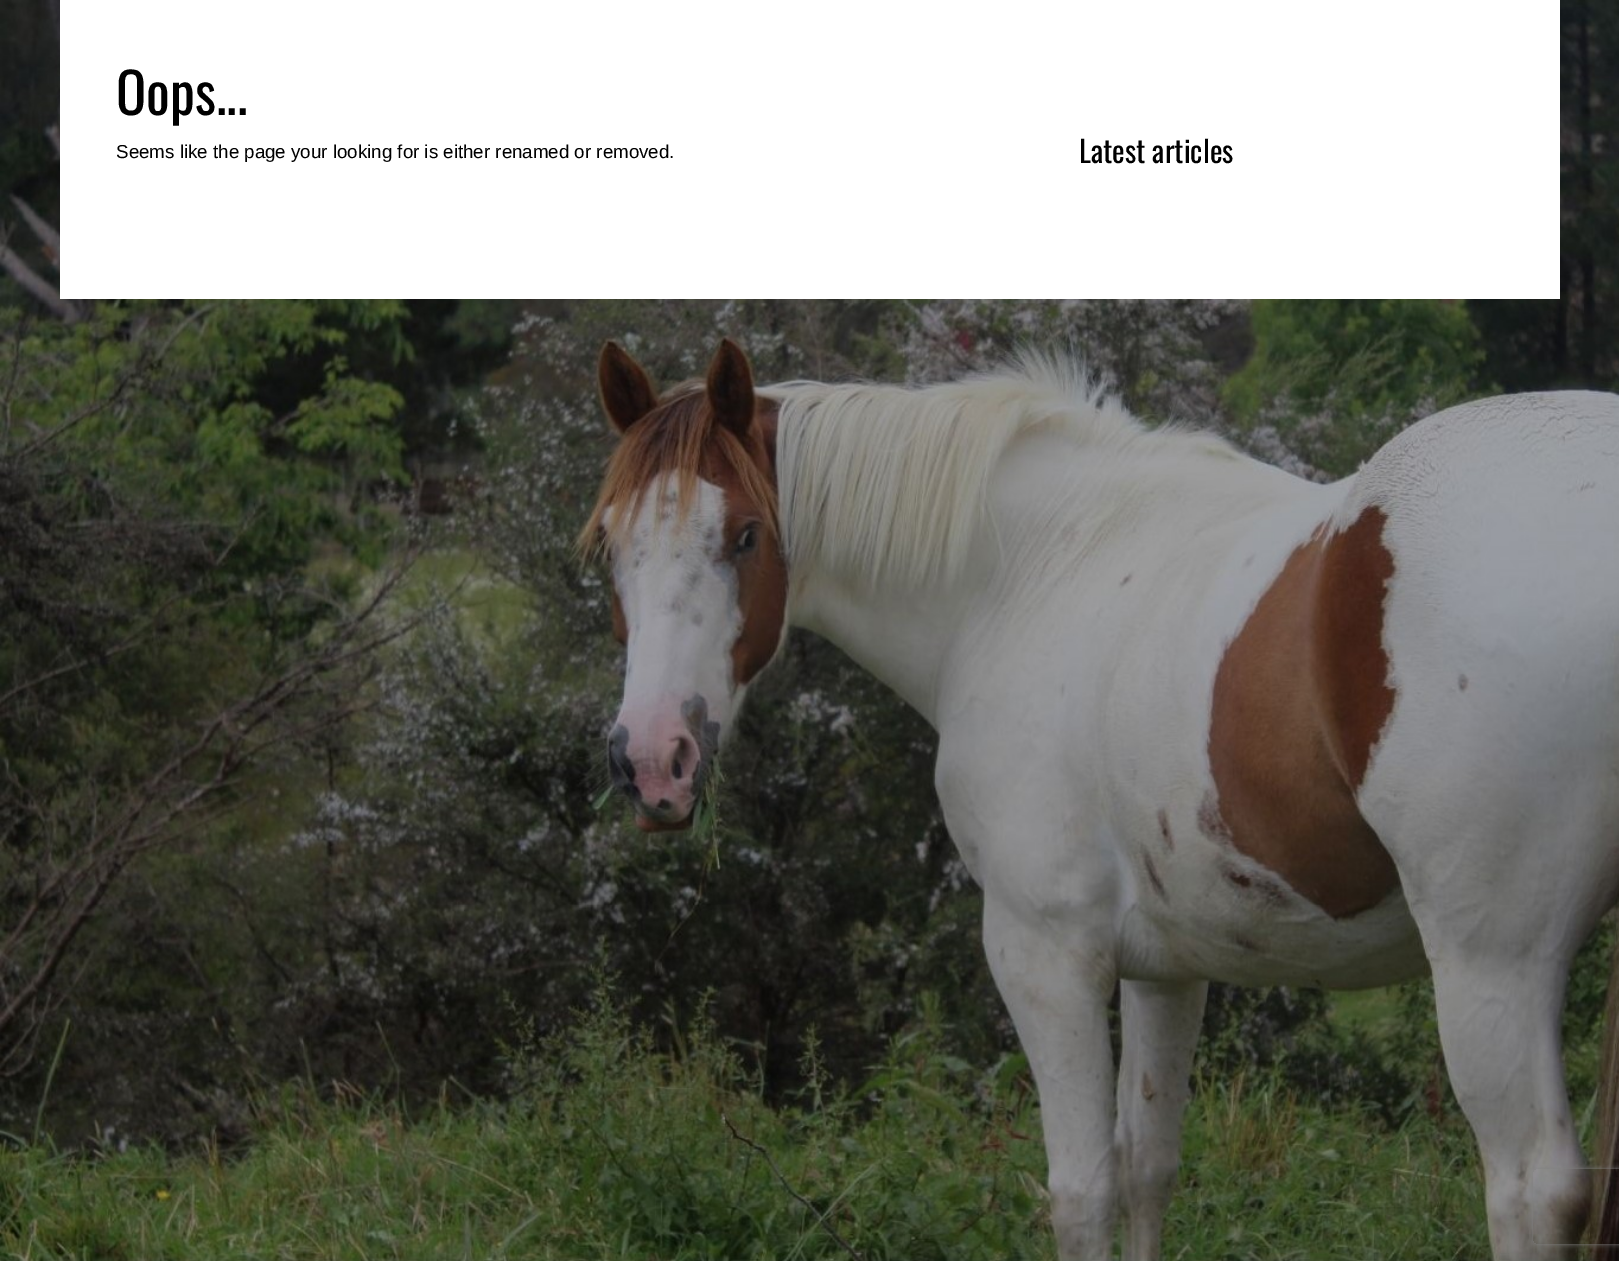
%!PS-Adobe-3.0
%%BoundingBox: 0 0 1619 1261
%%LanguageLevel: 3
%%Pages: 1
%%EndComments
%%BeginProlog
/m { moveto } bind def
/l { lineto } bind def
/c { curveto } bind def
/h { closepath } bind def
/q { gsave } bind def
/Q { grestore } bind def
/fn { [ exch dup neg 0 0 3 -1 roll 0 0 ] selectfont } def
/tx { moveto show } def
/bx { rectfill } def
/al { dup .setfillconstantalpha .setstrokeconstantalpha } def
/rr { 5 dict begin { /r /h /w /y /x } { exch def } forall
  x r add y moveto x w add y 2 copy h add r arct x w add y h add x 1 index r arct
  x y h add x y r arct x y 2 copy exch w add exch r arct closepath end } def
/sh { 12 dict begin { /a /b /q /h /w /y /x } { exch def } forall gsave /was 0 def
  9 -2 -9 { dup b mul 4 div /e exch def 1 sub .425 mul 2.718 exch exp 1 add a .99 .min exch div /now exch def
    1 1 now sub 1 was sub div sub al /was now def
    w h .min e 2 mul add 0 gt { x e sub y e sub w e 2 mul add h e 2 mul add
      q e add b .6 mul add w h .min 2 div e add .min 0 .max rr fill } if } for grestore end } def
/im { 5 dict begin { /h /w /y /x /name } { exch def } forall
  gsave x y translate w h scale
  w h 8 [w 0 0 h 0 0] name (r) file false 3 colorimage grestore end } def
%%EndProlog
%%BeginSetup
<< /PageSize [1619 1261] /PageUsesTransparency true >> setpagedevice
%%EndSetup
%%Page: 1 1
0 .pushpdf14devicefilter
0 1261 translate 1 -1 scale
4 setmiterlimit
1 setgray
0 0 1619 1261 bx
(image0.raw) 0 0 1619 1261 im
60 0 1500 299 bx
/Oswald-Regular 56 fn
0 setgray
(Oops...) 116 115 tx
/LiberationSans-Regular 18.75 fn
(Seems like the page your looking for is either renamed or removed.) 116 158 tx
/Oswald-Regular 30 fn
(Latest articles) 1079 163 tx
q
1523 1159 m 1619 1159 l 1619 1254 l 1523 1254 l h 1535.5 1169 m 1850.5 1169 l 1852 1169 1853 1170 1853 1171.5 c 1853 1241.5 l 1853 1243 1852 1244 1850.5 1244 c 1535.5 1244 l 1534 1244 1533 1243 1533 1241.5 c 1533 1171.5 l 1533 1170 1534 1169 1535.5 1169 c h eoclip newpath
0.502 setgray
1533 1169 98 75 2.5 3 1 sh
Q
.poppdf14devicefilter showpage
%%EOF
